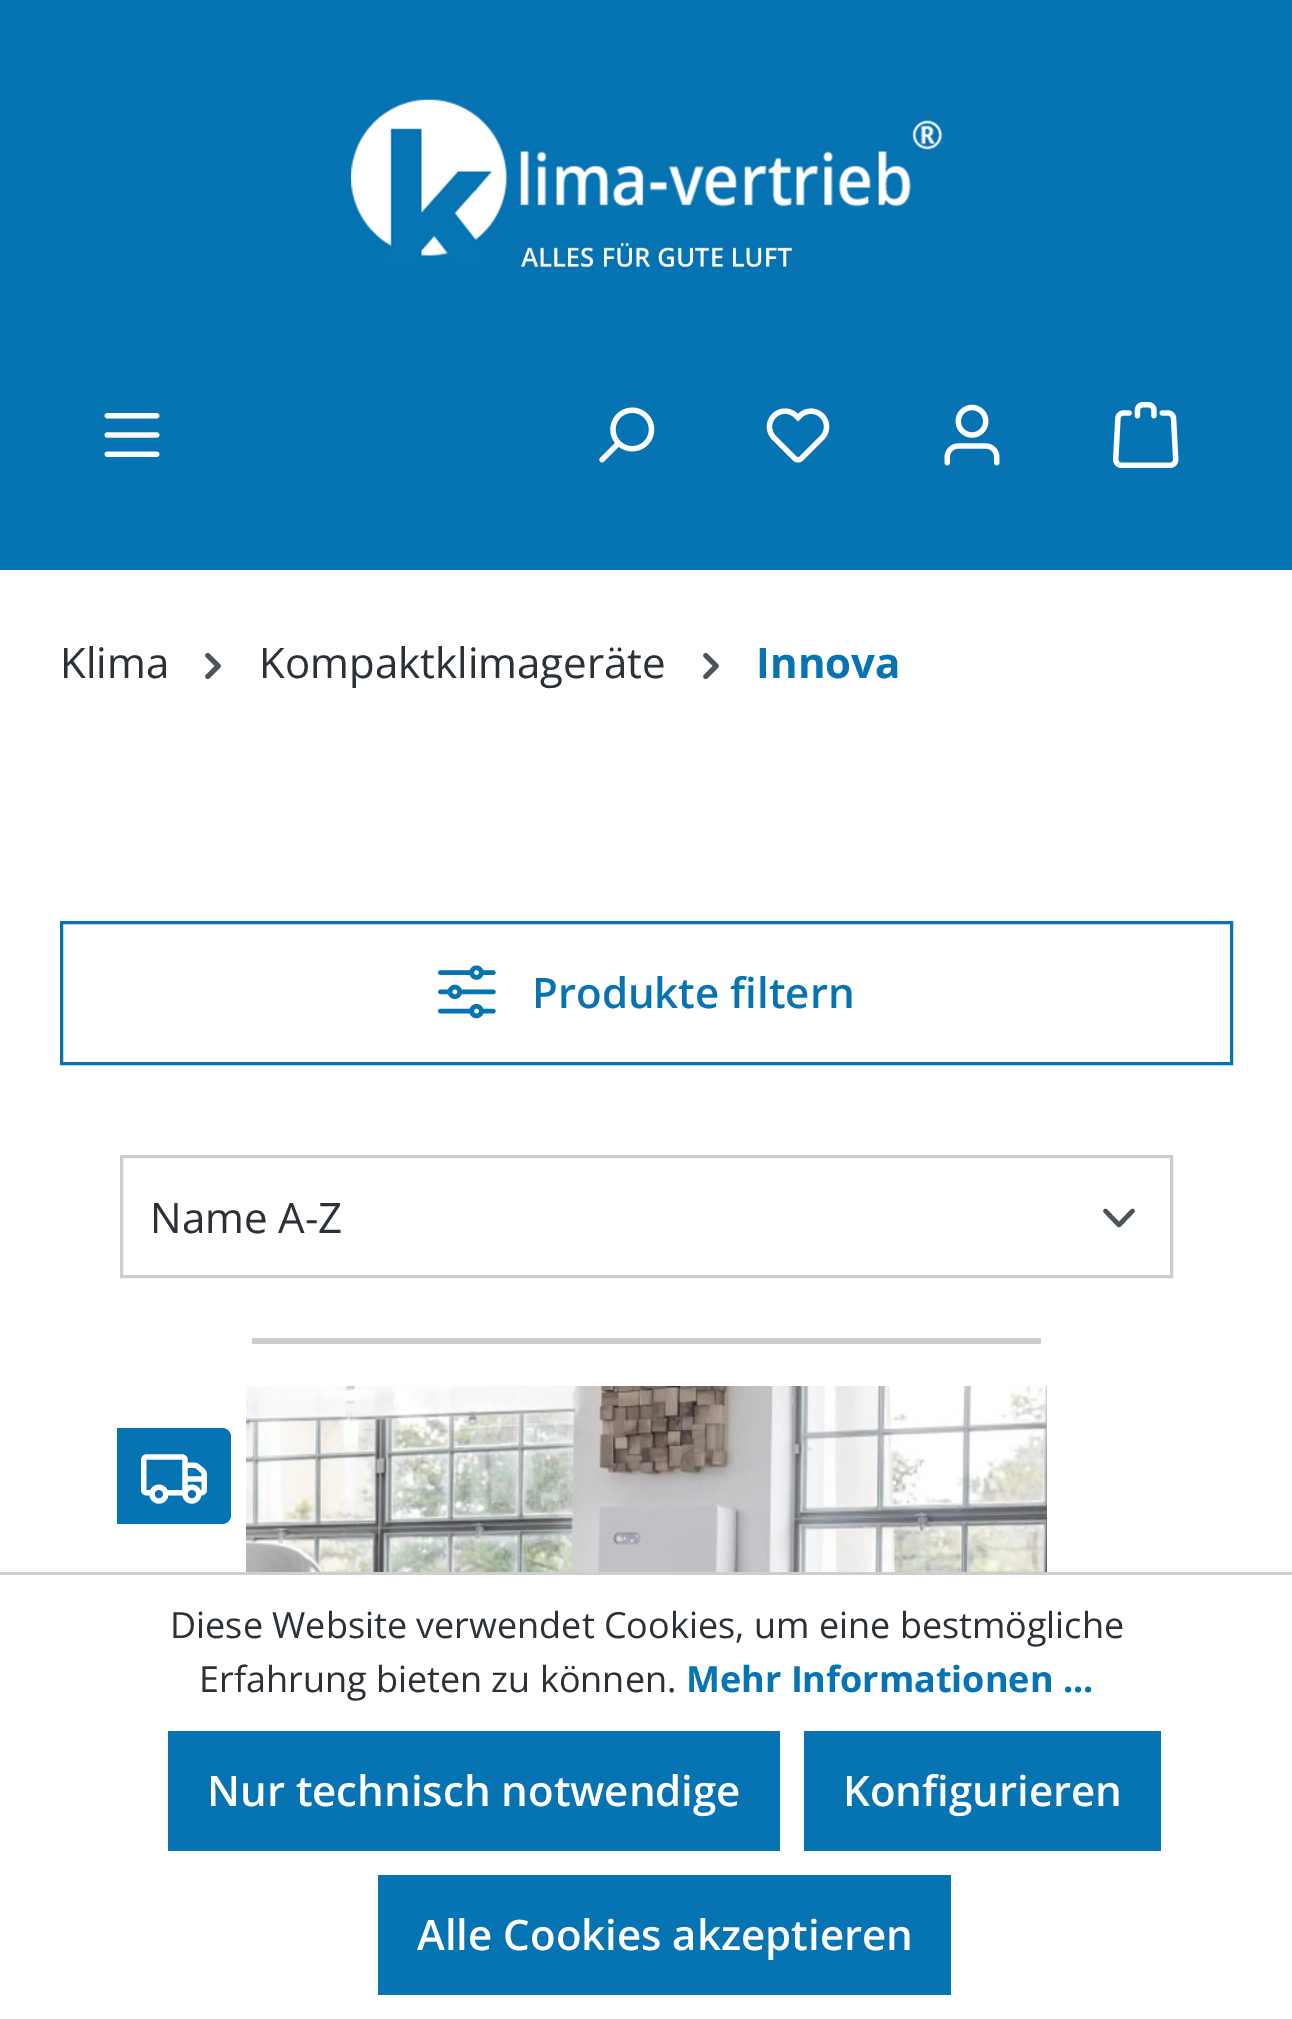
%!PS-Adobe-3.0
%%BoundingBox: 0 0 1292 2019
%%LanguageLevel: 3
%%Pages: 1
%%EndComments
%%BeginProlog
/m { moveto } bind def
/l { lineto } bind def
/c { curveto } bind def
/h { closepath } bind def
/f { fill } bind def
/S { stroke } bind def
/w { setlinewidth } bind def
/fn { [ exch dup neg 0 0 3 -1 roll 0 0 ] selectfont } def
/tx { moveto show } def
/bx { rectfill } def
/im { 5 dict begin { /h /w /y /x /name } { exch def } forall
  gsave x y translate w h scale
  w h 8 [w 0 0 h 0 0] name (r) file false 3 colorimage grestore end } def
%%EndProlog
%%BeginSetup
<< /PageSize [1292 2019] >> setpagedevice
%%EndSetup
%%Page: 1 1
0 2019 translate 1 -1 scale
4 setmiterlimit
1 setgray
0 0 1292 2019 bx
0.024 0.451 0.698 setrgbcolor
0 0 1292 570 bx
(image0.raw) 349 99 595 171 im
(image1.raw) 104 413 56 44 im
(image2.raw) 599 407 56 56 im
(image3.raw) 766 408 64 55 im
(image4.raw) 944 404 56 62 im
(image5.raw) 1113 402 66 66 im
/OpenSans-Regular 42 fn
0.169 0.192 0.212 setrgbcolor
(Klima) 60 678 tx
(image6.raw) 205 652 16 28 im
(Kompaktklimageräte) 259 678 tx
(image6.raw) 703 652 16 28 im
/OpenSans-Bold 42 fn
0.024 0.451 0.698 setrgbcolor
(Innova) 756 678 tx
3 w
61.5 922.5 1170 141 rectstroke
(image7.raw) 438 965 58 54 im
/OpenSans-SemiBold 42 fn
(Produkte filtern) 532 1008 tx
0.29 0.329 0.357 setrgbcolor
4.5 w
1 setlinecap
1 setlinejoin
1105.5 1211 m 1119 1225 l 1132.5 1211 l S
0.808 setgray
3 w
0 setlinecap
0 setlinejoin
121.5 1156.5 1050 120 rectstroke
/OpenSans-Regular 42 fn
0.169 0.192 0.212 setrgbcolor
(Name A-Z) 150 1233 tx
0.808 setgray
252 1338 789 6 bx
0.024 0.451 0.698 setrgbcolor
117 1428 m 222 1428 l 227 1428 231 1432 231 1437 c 231 1515 l 231 1520 227 1524 222 1524 c 117 1524 l h f
(image8.raw) 141 1454 66 50 im
(image9.raw) 246 1386 801 186 im
0.808 setgray
0 1572 1292 3 bx
/OpenSans-Regular 36 fn
0.169 0.192 0.212 setrgbcolor
(Diese Website verwendet Cookies, um eine bestmögliche) 170 1638 tx
(Erfahrung bieten zu können.) 199 1692 tx
/OpenSans-Bold 36 fn
0.024 0.451 0.698 setrgbcolor
(Mehr Informationen ...) 686 1692 tx
168 1731 612 120 bx
/OpenSans-SemiBold 42 fn
1 setgray
(Nur technisch notwendige) 207 1806 tx
0.024 0.451 0.698 setrgbcolor
804 1731 357 120 bx
1 setgray
(Konfigurieren) 843 1806 tx
0.024 0.451 0.698 setrgbcolor
378 1875 573 120 bx
1 setgray
(Alle Cookies akzeptieren) 417 1950 tx
showpage
%%EOF
